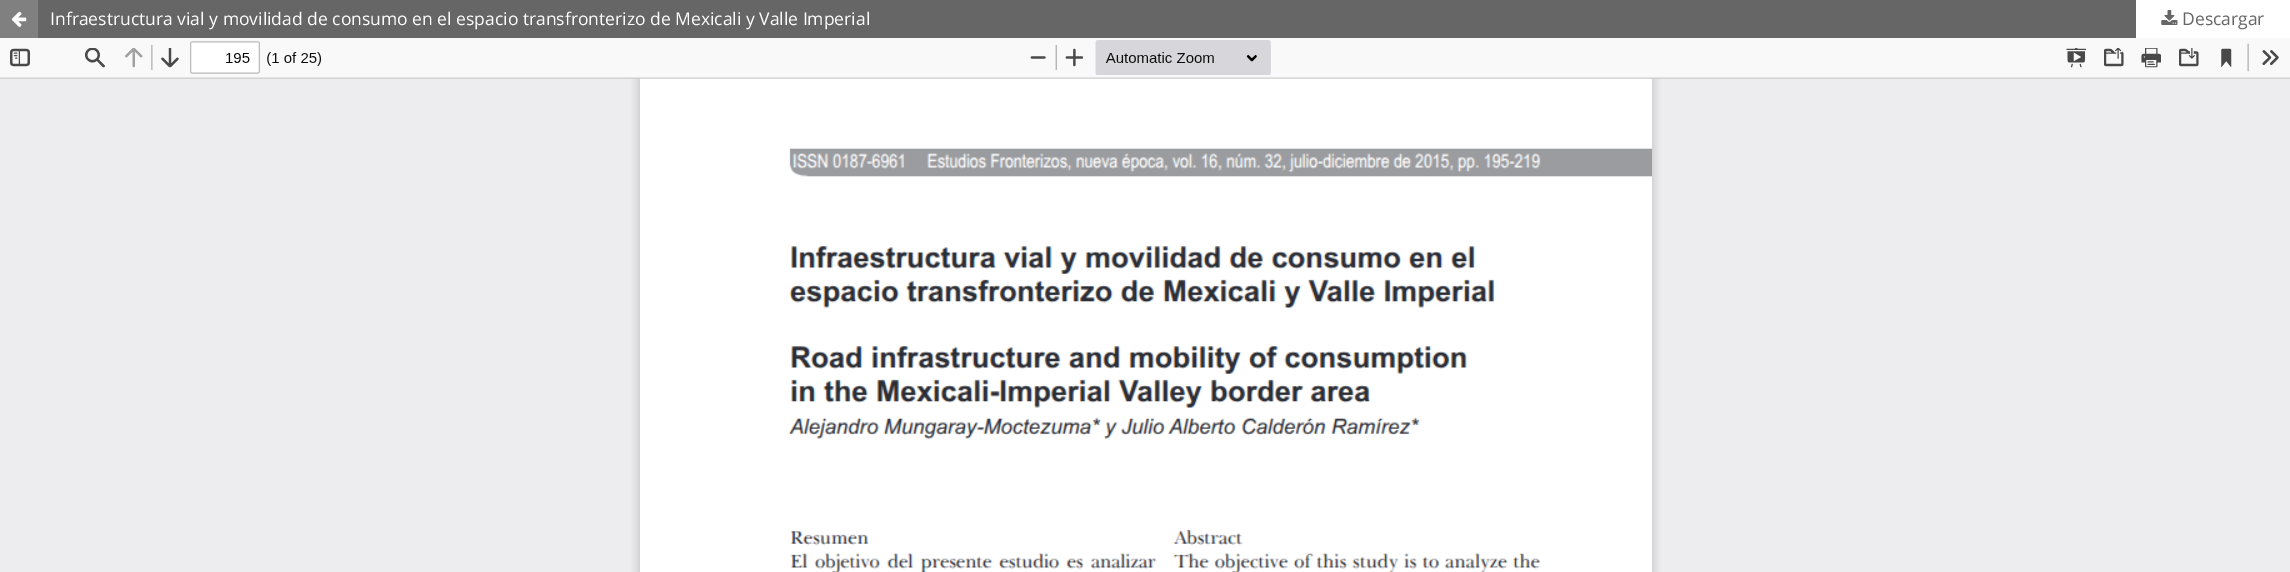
%!PS-Adobe-3.0
%%BoundingBox: 0 0 2290 572
%%LanguageLevel: 3
%%Pages: 1
%%EndComments
%%BeginProlog
/fn { [ exch dup neg 0 0 3 -1 roll 0 0 ] selectfont } def
/tx { moveto show } def
/bx { rectfill } def
/im { 5 dict begin { /h /w /y /x /name } { exch def } forall
  gsave x y translate w h scale
  w h 8 [w 0 0 h 0 0] name (r) file false 3 colorimage grestore end } def
%%EndProlog
%%BeginSetup
<< /PageSize [2290 572] >> setpagedevice
%%EndSetup
%%Page: 1 1
0 572 translate 1 -1 scale
4 setmiterlimit
1 setgray
0 0 2290 572 bx
0.4 setgray
38 0 2098 38 bx
0.502 setgray
0 0 38 38 bx
(image0.raw) 11 11 16 16 im
/OpenSans-Regular 17.5 fn
1 setgray
(Infraestructura vial y movilidad de consumo en el espacio transfronterizo de Mexicali y Valle Imperial) 50 25 tx
(image1.raw) 2161 10 17 15 im
0.4 setgray
(Descargar) 2182 25 tx
(image2.raw) 0 38 2290 534 im
showpage
%%EOF
